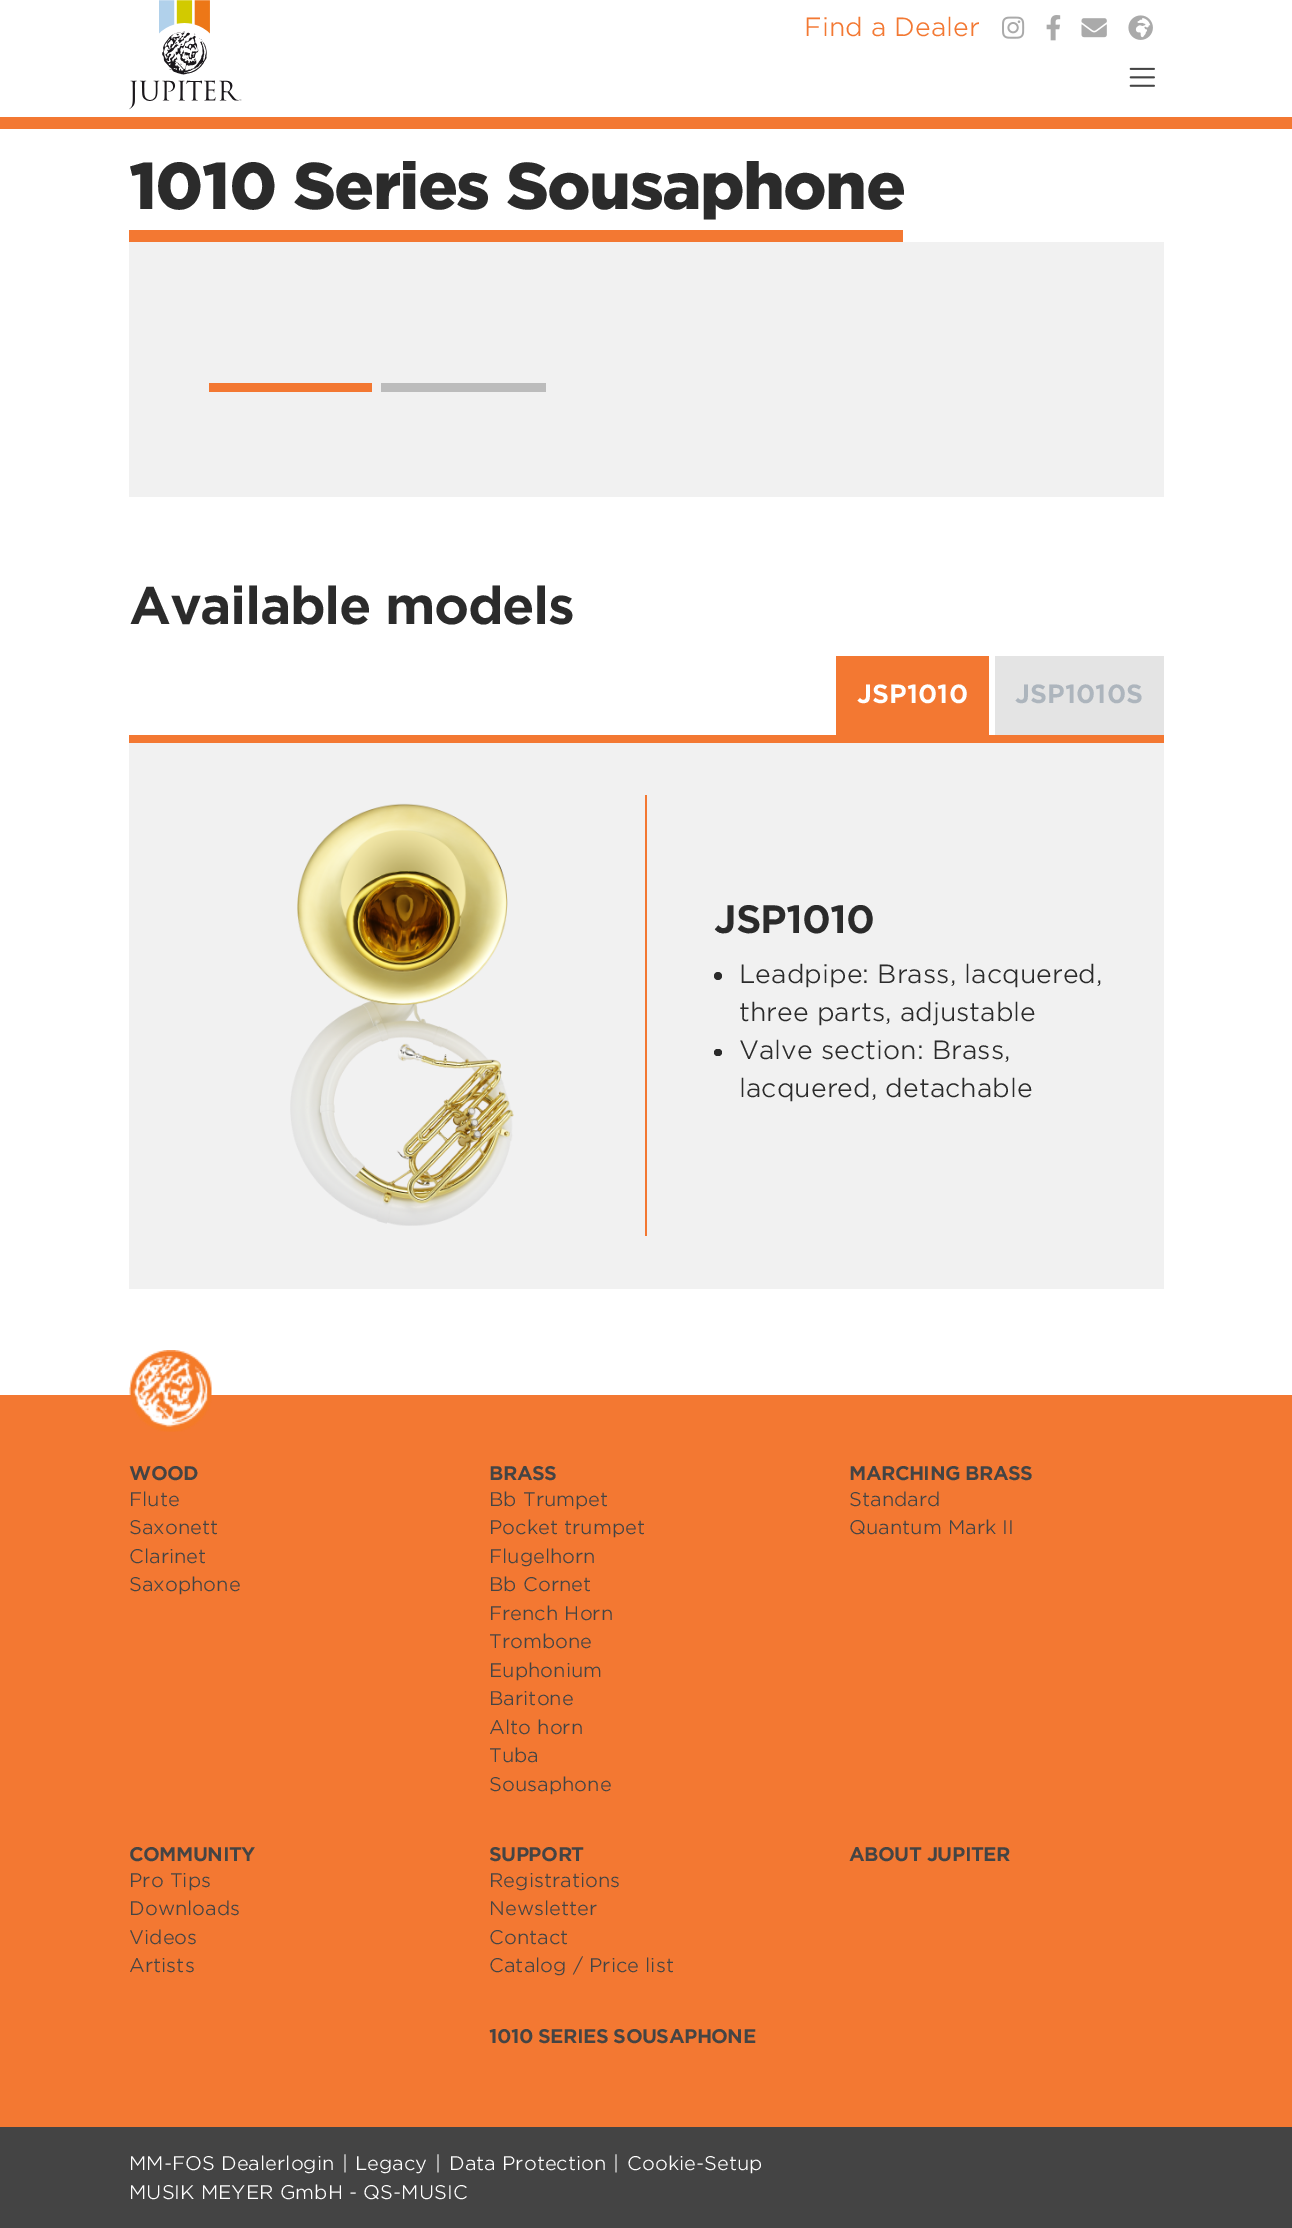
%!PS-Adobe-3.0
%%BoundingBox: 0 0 1292 2228
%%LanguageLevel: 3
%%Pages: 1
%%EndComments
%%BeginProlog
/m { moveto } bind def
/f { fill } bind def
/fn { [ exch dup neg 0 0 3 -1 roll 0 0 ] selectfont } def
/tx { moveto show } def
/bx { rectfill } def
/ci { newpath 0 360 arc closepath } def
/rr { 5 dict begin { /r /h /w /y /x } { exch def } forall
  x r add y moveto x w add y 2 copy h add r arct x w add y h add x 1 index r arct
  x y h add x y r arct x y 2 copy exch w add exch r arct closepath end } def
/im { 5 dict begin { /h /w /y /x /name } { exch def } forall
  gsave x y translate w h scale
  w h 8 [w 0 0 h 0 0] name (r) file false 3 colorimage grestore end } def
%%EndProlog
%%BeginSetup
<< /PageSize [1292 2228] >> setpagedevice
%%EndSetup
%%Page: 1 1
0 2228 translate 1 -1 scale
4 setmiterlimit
1 setgray
0 0 1292 2228 bx
0.953 0.471 0.196 setrgbcolor
0 117 1292 12 bx
(image0.raw) 129 0 113 110 im
/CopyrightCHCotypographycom-Light 25.3 fn
(Find a Dealer) 804 36 tx
(image1.raw) 1002 16 23 23 im
(image2.raw) 1046 15 15 26 im
(image3.raw) 1081 18 26 20 im
(image4.raw) 1128 15 25 25 im
(image5.raw) 1129 67 26 20 im
/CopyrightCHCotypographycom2-Regular 63.4 fn
0.169 setgray
129 209 m -1.9 0 (1010 Series Sousaphone) ashow
0.953 0.471 0.196 setrgbcolor
129 230 774 12 bx
0.945 setgray
129 242 1035 255 bx
0.953 0.471 0.196 setrgbcolor
209 383 163 9 bx
0.737 setgray
381 383 165 9 bx
/CopyrightCHCotypographycom-Regular 50.75 fn
0.169 setgray
129 624 m -1.5 0 (Available models) ashow
0.953 0.471 0.196 setrgbcolor
129 735 1035 8 bx
836 656 153 79 bx
/CopyrightCHCotypographycom-Regular 25.3 fn
1 setgray
(JSP1010) 857 703 tx
0.894 setgray
995 656 169 79 bx
0.678 0.71 0.741 setrgbcolor
(JSP1010S) 1015 703 tx
0.945 setgray
129 743 1035 546 bx
0.953 0.471 0.196 setrgbcolor
645 795 2 441 bx
(image6.raw) 290 803 224 423 im
/CopyrightCHCotypographycom-Regular 38 fn
0.169 setgray
714 933 m -1 0 (JSP1010) ashow
718 976 4 ci f
/CopyrightCHCotypographycom-Light 25.3 fn
(Leadpipe: Brass, lacquered,) 739 983 tx
(three parts, adjustable) 739 1021 tx
714 1049 8 7 3.5 rr f
(Valve section: Brass,) 739 1059 tx
(lacquered, detachable) 739 1097 tx
0.953 0.471 0.196 setrgbcolor
0 1395 1292 732 bx
(image7.raw) 129 1350 83 82 im
/CopyrightCHCotypographycom-Regular 19 fn
0.267 setgray
129 1480 m -0.6 0 (WOOD) ashow
/CopyrightCHCotypographycom-Light 19 fn
(Flute) 129 1506 tx
(Saxonett) 129 1534 tx
(Clarinet) 129 1563 tx
(Saxophone) 129 1591 tx
/CopyrightCHCotypographycom-Regular 19 fn
489 1480 m -0.6 0 (BRASS) ashow
/CopyrightCHCotypographycom-Light 19 fn
(Bb Trumpet) 489 1506 tx
(Pocket trumpet) 489 1534 tx
(Flugelhorn) 489 1563 tx
(Bb Cornet) 489 1591 tx
(French Horn) 489 1620 tx
(Trombone) 489 1648 tx
(Euphonium) 489 1677 tx
(Baritone) 489 1705 tx
(Alto horn) 489 1734 tx
(Tuba) 489 1762 tx
(Sousaphone) 489 1791 tx
/CopyrightCHCotypographycom-Regular 19 fn
849 1480 m -0.6 0 (MARCHING BRASS) ashow
/CopyrightCHCotypographycom-Light 19 fn
(Standard) 849 1506 tx
(Quantum Mark II) 849 1534 tx
/CopyrightCHCotypographycom-Regular 19 fn
129 1861 m -0.6 0 (COMMUNITY) ashow
/CopyrightCHCotypographycom-Light 19 fn
(Pro Tips) 129 1887 tx
(Downloads) 129 1915 tx
(Videos) 129 1944 tx
(Artists) 129 1972 tx
/CopyrightCHCotypographycom-Regular 19 fn
489 1861 m -0.6 0 (SUPPORT) ashow
/CopyrightCHCotypographycom-Light 19 fn
(Registrations) 489 1887 tx
(Newsletter) 489 1915 tx
(Contact) 489 1944 tx
(Catalog / Price list) 489 1972 tx
/CopyrightCHCotypographycom-Regular 19 fn
849 1861 m -0.6 0 (ABOUT JUPITER) ashow
489 2043 m -0.6 0 (1010 SERIES SOUSAPHONE) ashow
0 2127 1292 101 bx
/CopyrightCHCotypographycom-Light 19 fn
1 setgray
(MM-FOS Dealerlogin) 129 2170 tx
(|) 342 2170 tx
(Legacy) 355 2170 tx
(|) 435 2170 tx
(Data Protection) 449 2170 tx
(|) 613 2170 tx
(Cookie-Setup) 627 2170 tx
(MUSIK MEYER GmbH - QS-MUSIC) 129 2199 tx
showpage
%%EOF
